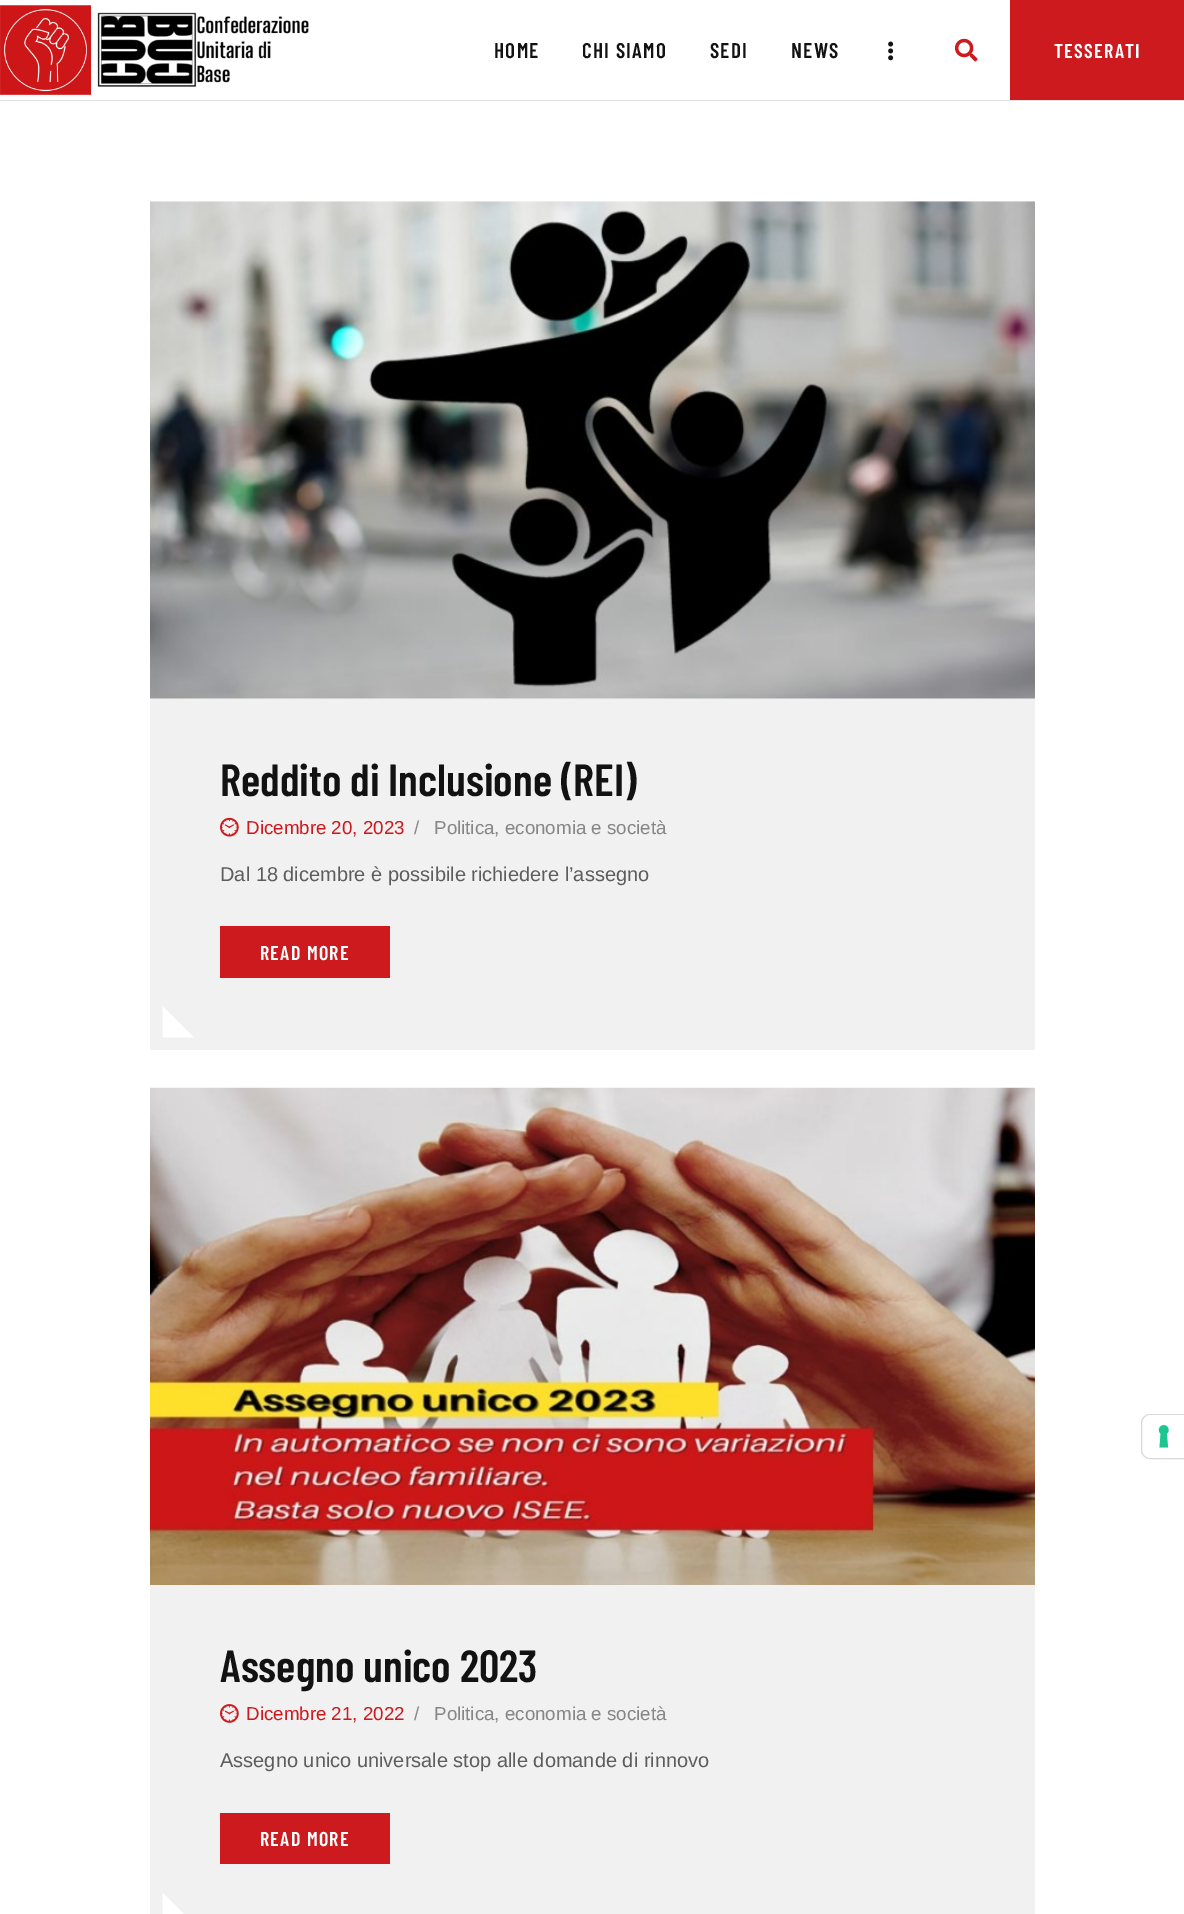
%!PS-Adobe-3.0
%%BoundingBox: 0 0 1184 1914
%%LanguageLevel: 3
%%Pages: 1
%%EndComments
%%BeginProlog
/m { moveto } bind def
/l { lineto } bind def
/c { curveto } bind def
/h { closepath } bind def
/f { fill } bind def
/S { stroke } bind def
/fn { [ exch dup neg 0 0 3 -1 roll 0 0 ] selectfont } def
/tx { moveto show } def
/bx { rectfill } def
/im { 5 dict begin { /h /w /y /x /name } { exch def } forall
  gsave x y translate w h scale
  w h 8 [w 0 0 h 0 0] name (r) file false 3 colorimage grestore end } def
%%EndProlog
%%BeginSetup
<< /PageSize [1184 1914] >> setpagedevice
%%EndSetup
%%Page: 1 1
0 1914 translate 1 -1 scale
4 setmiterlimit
1 setgray
0 0 1184 1914 bx
0.882 setgray
0 100 1184 1 bx
(image0.raw) 0 5 309 90 im
/BarlowCondensed-SemiBold 21.25 fn
0.071 setgray
494 58 m 1.25 0 (HOME) ashow
582 58 m 1.25 0 (CHI SIAMO) ashow
710 58 m 1.25 0 (SEDI) ashow
791 58 m 1.25 0 (NEWS) ashow
(image1.raw) 888 41 6 20 im
(image2.raw) 954 38 24 24 im
0.804 0.102 0.118 setrgbcolor
1010 0 174 100 bx
/BarlowCondensed-SemiBold 20 fn
1 setgray
1054 58 m 1.25 0 (TESSERATI) ashow
(image3.raw) 150 201 885 498 im
0.945 setgray
150 699 885 351 bx
/BarlowCondensed-SemiBold 45 fn
0.071 setgray
(Reddito di Inclusione \(REI\)) 220 796 tx
(image4.raw) 220 817 19 20 im
/LiberationSans-Regular 18.75 fn
0.804 0.102 0.118 setrgbcolor
(Dicembre 20, 2023) 246 834 tx
0.525 setgray
(/) 414 834 tx
(Politica, economia e società) 434 834 tx
/LiberationSans-Regular 20 fn
0.365 setgray
(Dal 18 dicembre è possibile richiedere l’assegno) 220 881 tx
0.804 0.102 0.118 setrgbcolor
220 926 170 52 bx
/BarlowCondensed-SemiBold 20 fn
1 setgray
260 960 m 1.25 0 (READ MORE) ashow
162.5 1037.5 m 162.5 1006 l 194 1037.5 l h f
(image5.raw) 150 1087 885 498 im
0.945 setgray
150 1585 885 329 bx
/BarlowCondensed-SemiBold 45 fn
0.071 setgray
(Assegno unico 2023) 220 1682 tx
(image6.raw) 220 1704 19 19 im
/LiberationSans-Regular 18.75 fn
0.804 0.102 0.118 setrgbcolor
(Dicembre 21, 2022) 246 1720 tx
0.525 setgray
(/) 414 1720 tx
(Politica, economia e società) 434 1720 tx
/LiberationSans-Regular 20 fn
0.365 setgray
(Assegno unico universale stop alle domande di rinnovo) 220 1767 tx
0.804 0.102 0.118 setrgbcolor
220 1813 170 51 bx
/BarlowCondensed-SemiBold 20 fn
1 setgray
260 1846 m 1.25 0 (READ MORE) ashow
162.5 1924 m 162.5 1892.5 l 194 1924 l h f
0.851 setgray
1150 1414.5 m 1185.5 1414.5 l 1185.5 1458.5 l 1150 1458.5 l 1145.5 1458.5 1141.5 1454.5 1141.5 1450 c 1141.5 1423 l 1141.5 1418.5 1145.5 1414.5 1150 1414.5 c h S
1 setgray
1151 1415 m 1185 1415 l 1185 1458 l 1151 1458 l 1146.5 1458 1143 1454.5 1143 1450 c 1143 1423 l 1143 1418.5 1146.5 1415 1151 1415 c h f
(image7.raw) 1158 1425 11 23 im
showpage
%%EOF
